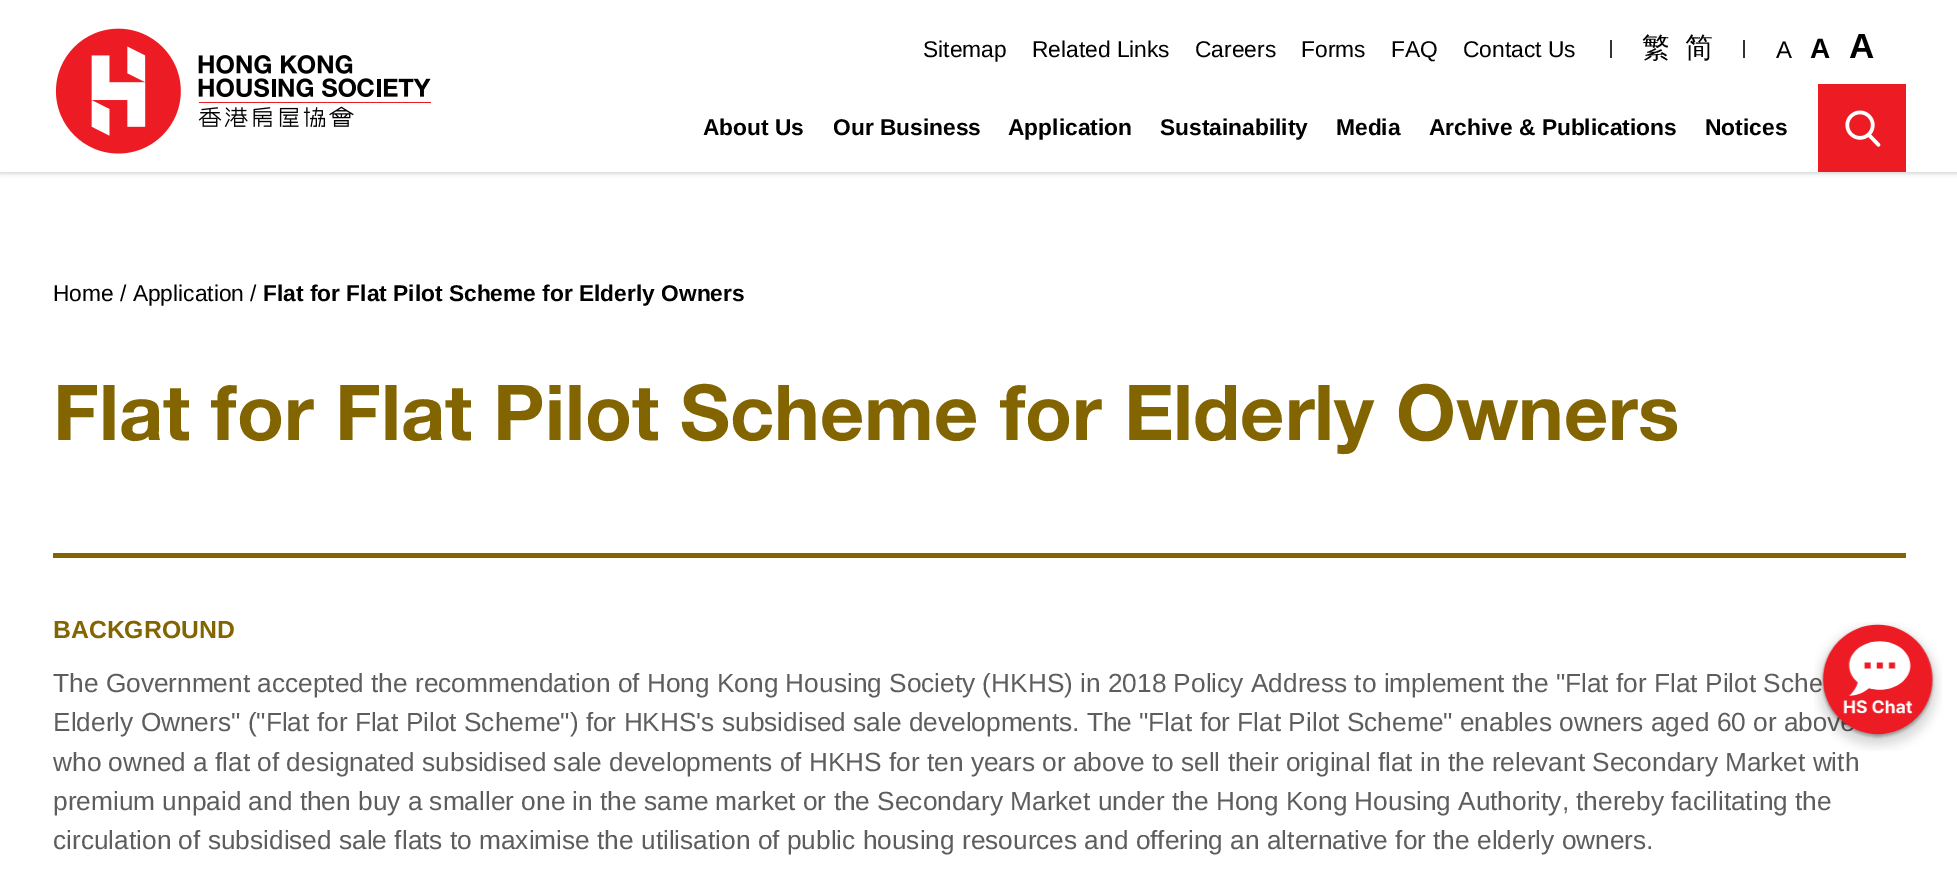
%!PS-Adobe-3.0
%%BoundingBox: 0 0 1957 878
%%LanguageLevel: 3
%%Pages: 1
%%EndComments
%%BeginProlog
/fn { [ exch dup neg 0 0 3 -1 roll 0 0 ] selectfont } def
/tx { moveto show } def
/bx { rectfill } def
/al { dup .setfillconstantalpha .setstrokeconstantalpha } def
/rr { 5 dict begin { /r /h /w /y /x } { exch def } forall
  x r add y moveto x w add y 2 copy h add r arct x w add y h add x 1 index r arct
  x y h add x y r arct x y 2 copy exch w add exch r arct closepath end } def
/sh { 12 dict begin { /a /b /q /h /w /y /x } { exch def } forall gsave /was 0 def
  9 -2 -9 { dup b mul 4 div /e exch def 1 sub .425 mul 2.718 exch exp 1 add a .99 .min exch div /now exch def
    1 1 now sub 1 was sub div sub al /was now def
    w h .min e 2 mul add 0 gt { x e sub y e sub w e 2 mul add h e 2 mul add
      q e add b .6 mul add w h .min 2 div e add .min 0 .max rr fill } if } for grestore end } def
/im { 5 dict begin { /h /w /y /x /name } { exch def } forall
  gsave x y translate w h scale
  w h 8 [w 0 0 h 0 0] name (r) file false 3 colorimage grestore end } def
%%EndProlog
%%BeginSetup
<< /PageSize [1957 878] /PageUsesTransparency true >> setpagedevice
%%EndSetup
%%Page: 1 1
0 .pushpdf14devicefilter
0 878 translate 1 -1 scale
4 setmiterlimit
1 setgray
0 0 1957 878 bx
0 setgray
0 2 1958 171 0 2.5 0.2 sh
1 setgray
0 0 1957 172 bx
(image0.raw) 55 28 376 126 im
/Arimo-Regular 22.75 fn
0 setgray
(Sitemap) 923 57 tx
(Related Links) 1032 57 tx
(Careers) 1195 57 tx
(Forms) 1301 57 tx
(FAQ) 1391 57 tx
(Contact Us) 1463 57 tx
0.2 setgray
1610 40 2 18 bx
/WenQuanYiZenHei-Medium 28 fn
0 setgray
(繁) 1642 57 tx
(简) 1685 57 tx
0.2 setgray
1743 40 2 18 bx
/Arimo-Regular 24 fn
0 setgray
(A) 1776 58 tx
/Arimo-Bold 28 fn
(A) 1810 58 tx
/Arimo-Bold 35 fn
(A) 1849 58 tx
/Arimo-Bold 22.75 fn
(About Us) 703 135 tx
(Our Business) 833 135 tx
(Application) 1008 135 tx
(Sustainability) 1160 135 tx
(Media) 1336 135 tx
(Archive & Publications) 1429 135 tx
(Notices) 1705 135 tx
0.929 0.106 0.141 setrgbcolor
1818 84 88 88 bx
(image1.raw) 1845 110 36 37 im
/Arimo-Regular 22.75 fn
0 setgray
(Home / Application /) 53 301 tx
/Arimo-Bold 22.75 fn
(Flat for Flat Pilot Scheme for Elderly Owners) 263 301 tx
/HelveticaNeue-Bold 77 fn
0.51 0.392 0 setrgbcolor
(Flat for Flat Pilot Scheme for Elderly Owners) 53 440 tx
53 553 1853 5 bx
/Arimo-Bold 24.75 fn
(BACKGROUND) 53 638 tx
/Arimo-Regular 26.25 fn
0.365 setgray
(The Government accepted the recommendation of Hong Kong Housing Society \(HKHS\) in 2018 Policy Address to implement the "Flat for Flat Pilot Sche) 53 692 tx
(Elderly Owners" \("Flat for Flat Pilot Scheme"\) for HKHS's subsidised sale developments. The "Flat for Flat Pilot Scheme" enables owners aged 60 or abov) 53 731 tx
(who owned a flat of designated subsidised sale developments of HKHS for ten years or above to sell their original flat in the relevant Secondary Market with) 53 771 tx
(premium unpaid and then buy a smaller one in the same market or the Secondary Market under the Hong Kong Housing Authority, thereby facilitating the) 53 810 tx
(circulation of subsidised sale flats to maximise the utilisation of public housing resources and offering an alternative for the elderly owners.) 53 849 tx
(image2.raw) 1814 622 128 129 im
.poppdf14devicefilter showpage
%%EOF
